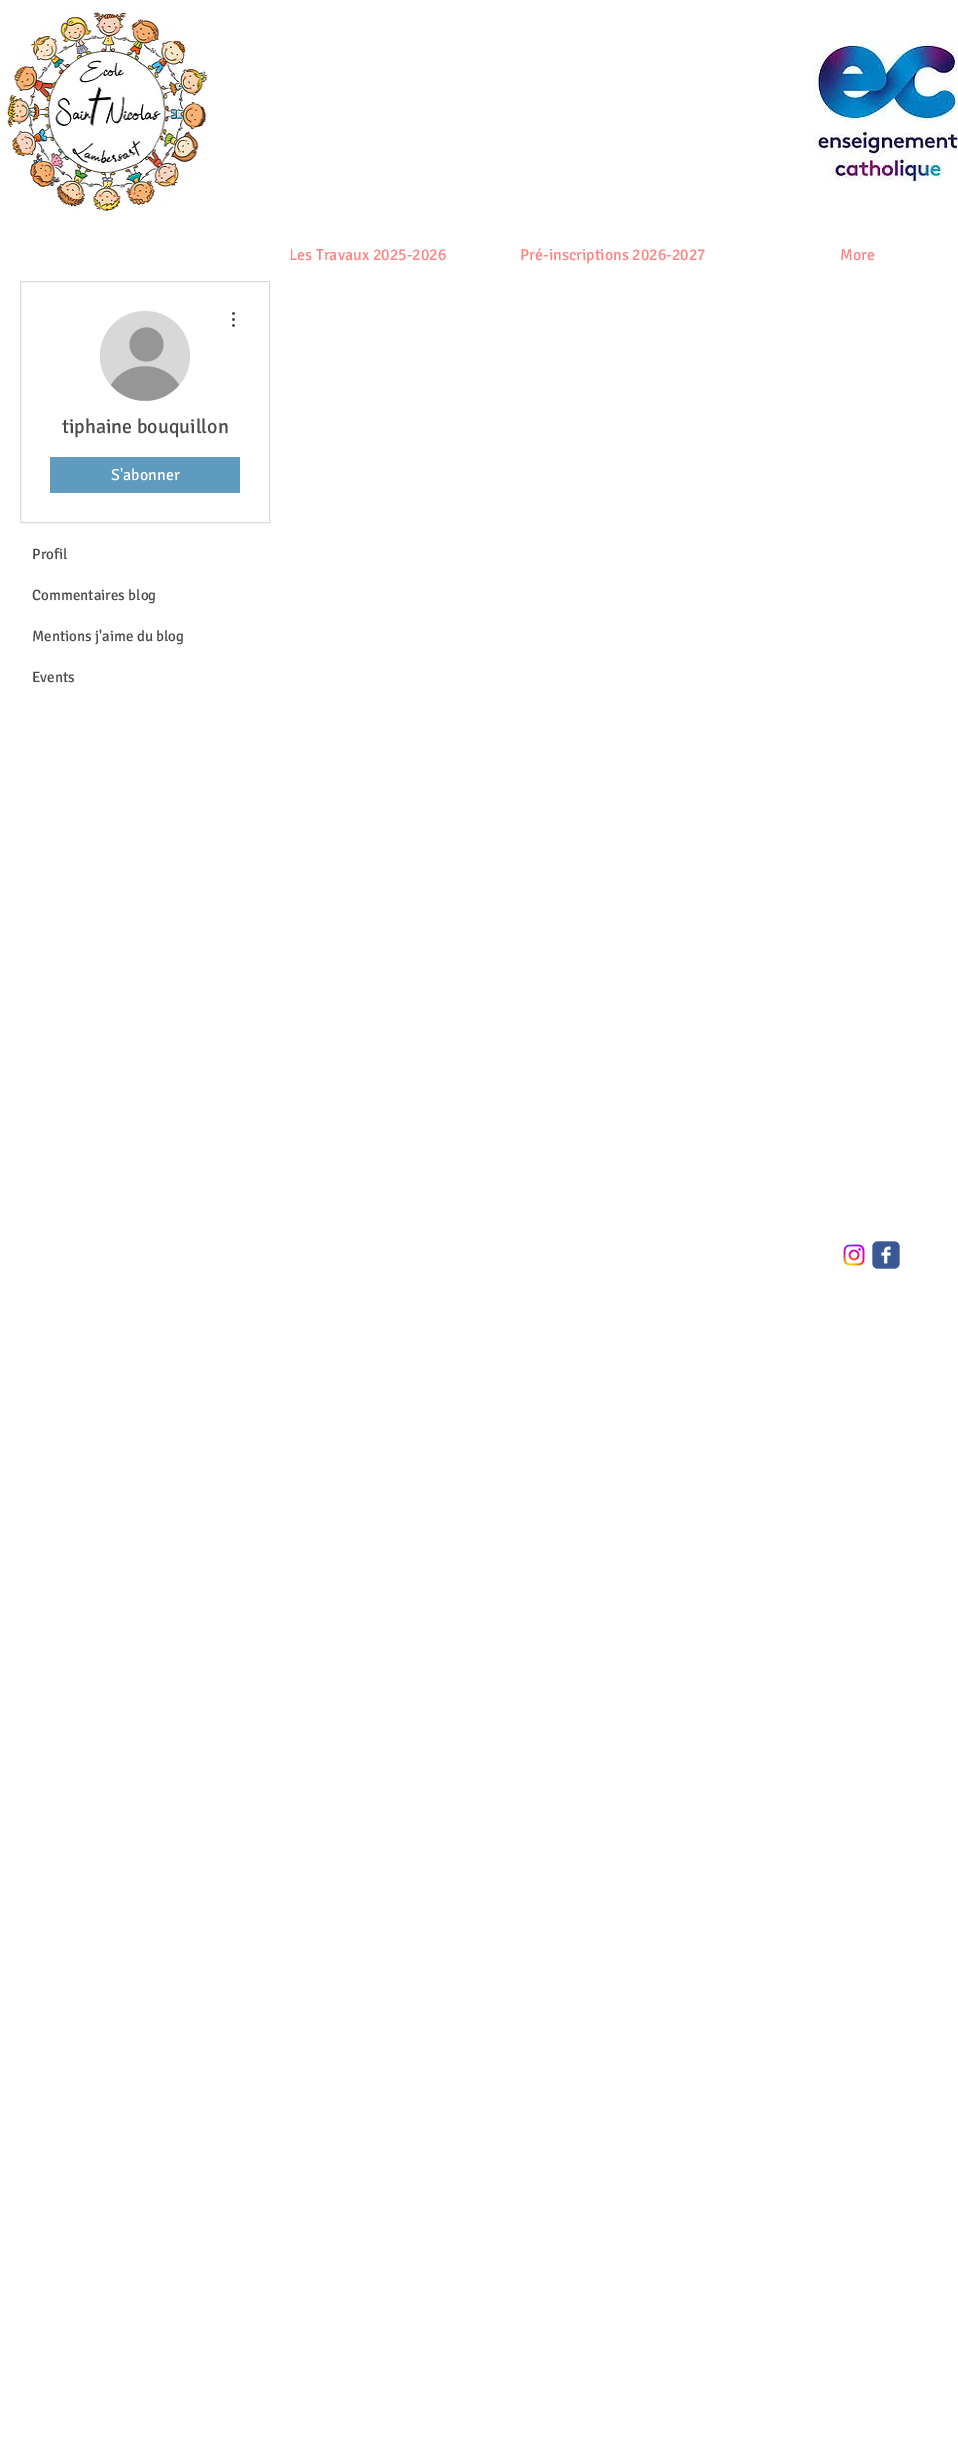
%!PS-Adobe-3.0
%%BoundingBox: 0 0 958 2440
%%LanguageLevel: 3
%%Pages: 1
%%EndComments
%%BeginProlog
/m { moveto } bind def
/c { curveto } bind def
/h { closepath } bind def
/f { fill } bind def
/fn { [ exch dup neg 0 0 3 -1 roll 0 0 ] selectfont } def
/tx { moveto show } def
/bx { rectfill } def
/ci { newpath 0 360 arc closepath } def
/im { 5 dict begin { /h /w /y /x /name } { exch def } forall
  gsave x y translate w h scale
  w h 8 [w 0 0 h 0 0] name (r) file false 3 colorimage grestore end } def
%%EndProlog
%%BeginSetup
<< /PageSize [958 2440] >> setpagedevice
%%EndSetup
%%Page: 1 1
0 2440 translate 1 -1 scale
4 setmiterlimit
1 setgray
0 0 958 2440 bx
(image0.raw) 7 12 202 199 im
(image1.raw) 814 41 144 141 im
/Signika-Regular 16 fn
1 0.51 0.51 setrgbcolor
(Les Travaux 2025-2026) 289 260 tx
(Pré-inscriptions 2026-2027) 520 260 tx
(More) 840 260 tx
1 setgray
290 249 1 11 bx
0.859 setgray
20.5 281.5 249 241 rectstroke
0.847 setgray
145 356 45 ci f
0.588 setgray
146.5 344.5 17 ci f
179 385 m 161 406 129 406 111 385 c 126 360 164 360 179 385 c h f
(image2.raw) 232 312 3 15 im
/Signika-Regular 20 fn
0.29 setgray
(tiphaine bouquillon) 62 433 tx
0.373 0.604 0.749 setrgbcolor
50 457 190 36 bx
/Signika-Regular 16 fn
1 setgray
(S'abonner) 111 480 tx
/Signika-Regular 15 fn
0.29 setgray
(Profil) 32 559 tx
(Commentaires blog) 32 600 tx
(Mentions j'aime du blog) 32 641 tx
(Events) 32 682 tx
(image3.raw) 843 1244 22 22 im
(image4.raw) 872 1241 28 28 im
showpage
%%EOF
